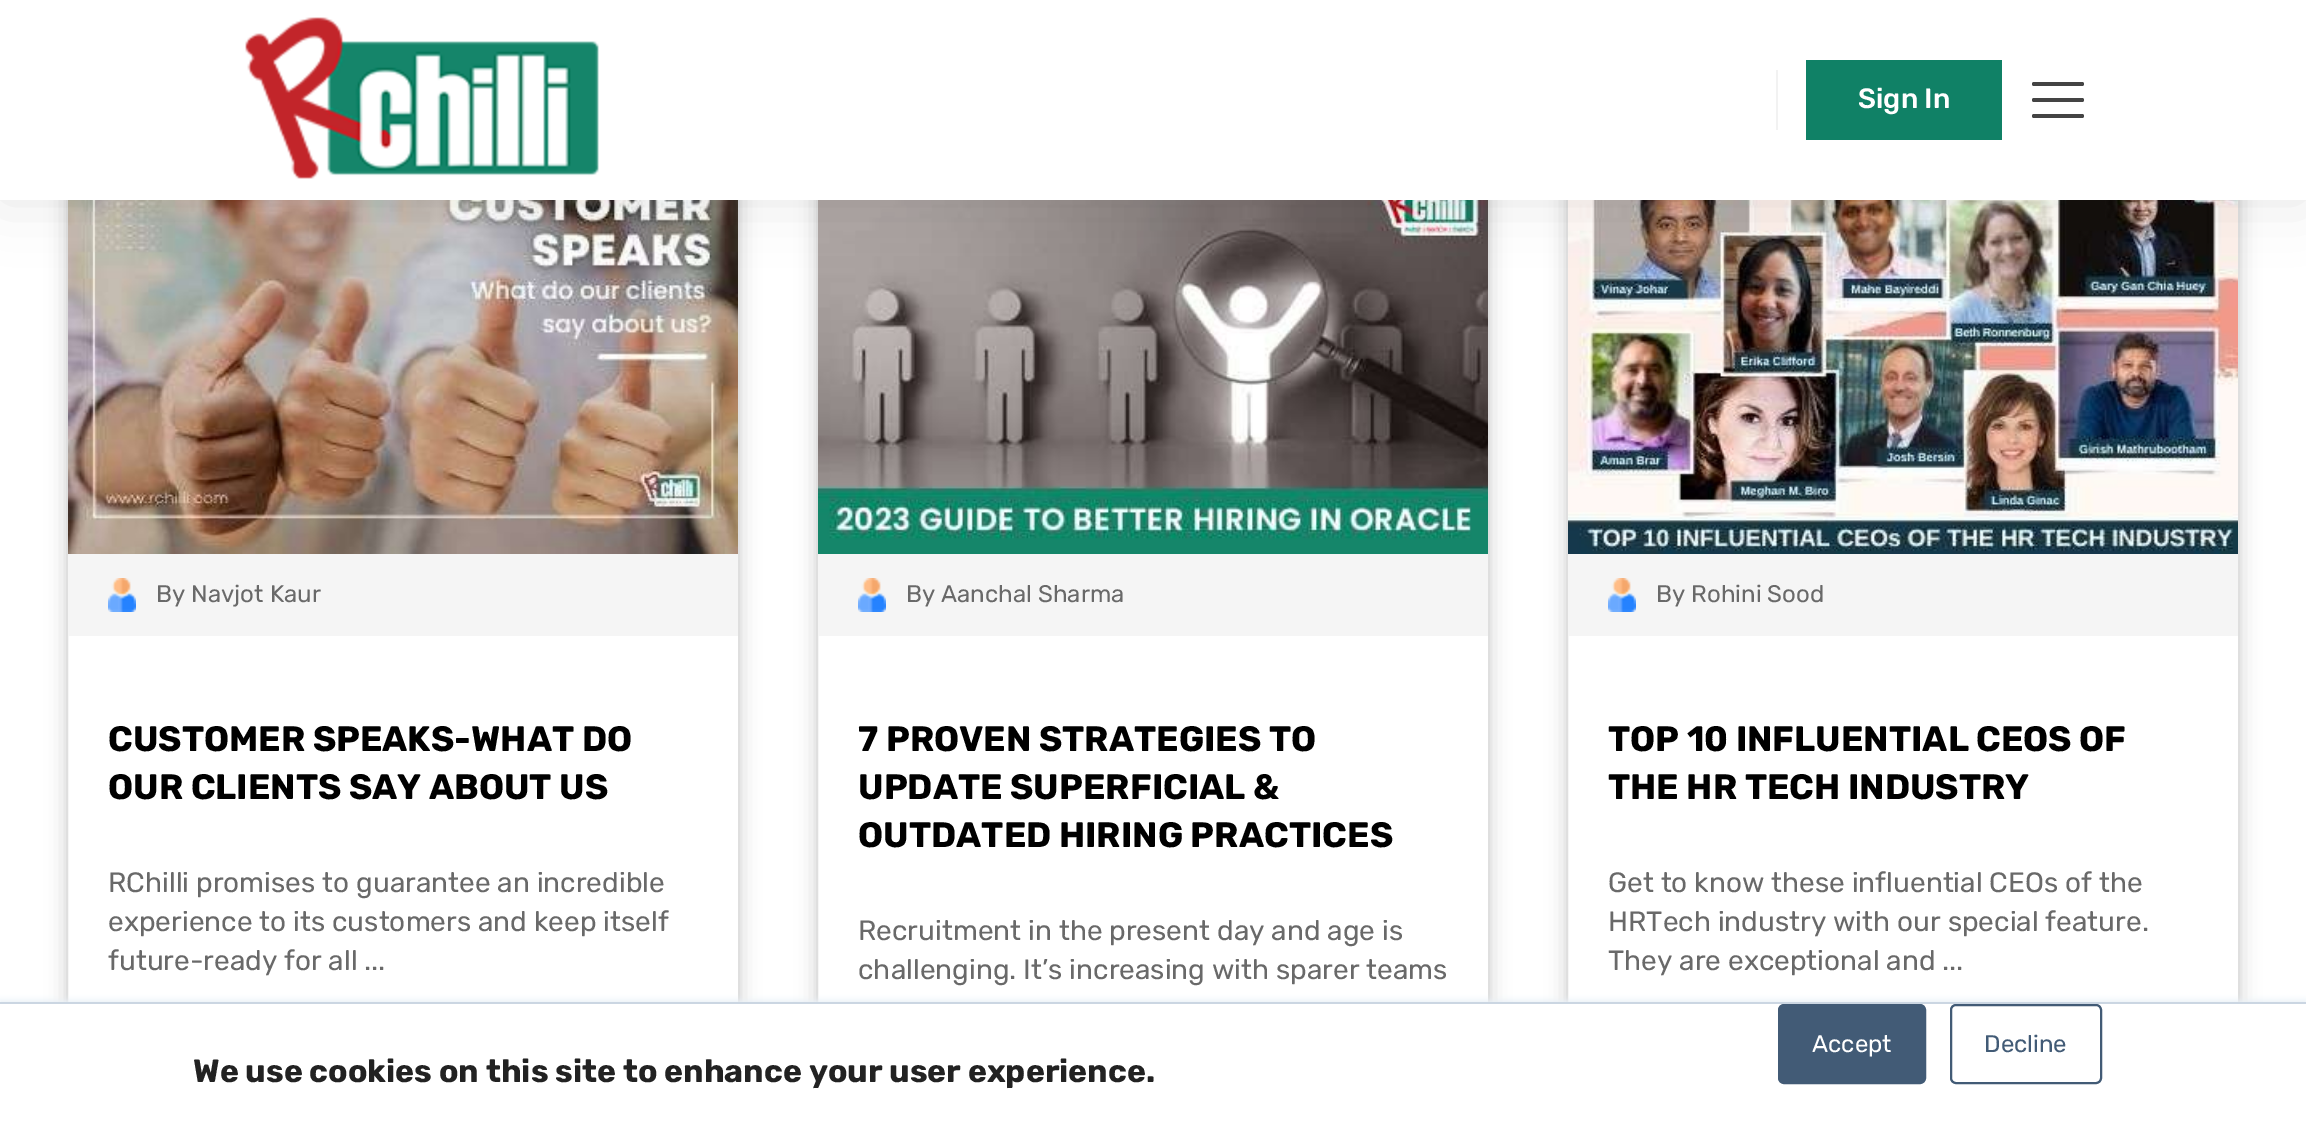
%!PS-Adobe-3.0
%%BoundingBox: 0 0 2306 1132
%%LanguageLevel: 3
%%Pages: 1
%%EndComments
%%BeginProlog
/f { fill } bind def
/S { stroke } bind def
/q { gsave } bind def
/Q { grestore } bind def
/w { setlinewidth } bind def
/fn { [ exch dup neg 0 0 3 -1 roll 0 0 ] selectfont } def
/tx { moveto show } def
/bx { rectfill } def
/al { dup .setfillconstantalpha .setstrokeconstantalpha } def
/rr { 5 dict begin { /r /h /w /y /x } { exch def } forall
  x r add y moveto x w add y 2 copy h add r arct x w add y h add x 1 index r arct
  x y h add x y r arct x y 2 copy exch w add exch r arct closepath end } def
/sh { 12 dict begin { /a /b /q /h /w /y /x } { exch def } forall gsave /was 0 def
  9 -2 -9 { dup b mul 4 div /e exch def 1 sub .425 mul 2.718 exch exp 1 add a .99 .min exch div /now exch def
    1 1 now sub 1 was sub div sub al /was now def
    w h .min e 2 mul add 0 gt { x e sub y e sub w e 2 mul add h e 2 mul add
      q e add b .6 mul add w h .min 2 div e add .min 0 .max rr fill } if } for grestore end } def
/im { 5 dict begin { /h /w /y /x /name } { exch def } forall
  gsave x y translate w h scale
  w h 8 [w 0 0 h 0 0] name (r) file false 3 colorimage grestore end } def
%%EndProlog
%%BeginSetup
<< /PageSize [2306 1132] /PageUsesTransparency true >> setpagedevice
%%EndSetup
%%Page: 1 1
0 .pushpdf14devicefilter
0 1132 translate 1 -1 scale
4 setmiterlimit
1 setgray
0 0 2306 1132 bx
0 setgray
66 158 674 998 8 10 0.18 sh
1 setgray
68 636 670 366 bx
0.875 setgray
2 w
67 153 672 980 rectstroke
(image1.raw) 68 200 670 354 im
0 setgray
816 158 674 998 8 10 0.18 sh
1 setgray
818 636 670 366 bx
0.875 setgray
817 153 672 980 rectstroke
(image3.raw) 818 200 670 354 im
0 setgray
1566 158 674 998 8 10 0.18 sh
1 setgray
1568 636 670 366 bx
0.875 setgray
1567 153 672 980 rectstroke
(image4.raw) 1568 200 670 354 im
0 setgray
0 0 2306 200 0 30 0.1 sh
1 setgray
0 0 2306 200 bx
(image0.raw) 245 17 354 162 im
0.949 setgray
1776 70 2 60 bx
0.063 0.506 0.4 setrgbcolor
1806 60 196 80 bx
/Rubik-Medium 28 fn
1 setgray
(Sign In) 1858 108 tx
0.267 setgray
2032 82 52 4 2 rr f
2032 98 52 4 2 rr f
2032 114 52 4 2 rr f
0.961 setgray
68 554 670 82 bx
(image2.raw) 108 578 28 34 im
/Rubik-Regular 24 fn
0.412 setgray
(By Navjot Kaur) 156 602 tx
/Rubik-Bold 35.25 fn
0 setgray
(CUSTOMER SPEAKS-WHAT DO) 108 751 tx
(OUR CLIENTS SAY ABOUT US) 108 799 tx
/Rubik-Regular 28 fn
0.412 setgray
(RChilli promises to guarantee an incredible) 108 892 tx
(experience to its customers and keep itself) 108 931 tx
(future-ready for all ...) 108 970 tx
0.961 setgray
818 554 670 82 bx
(image2.raw) 858 578 28 34 im
/Rubik-Regular 24 fn
0.412 setgray
(By Aanchal Sharma) 906 602 tx
/Rubik-Bold 35.25 fn
0 setgray
(7 PROVEN STRATEGIES TO) 858 751 tx
(UPDATE SUPERFICIAL &) 858 799 tx
(OUTDATED HIRING PRACTICES) 858 847 tx
/Rubik-Regular 28 fn
0.412 setgray
(Recruitment in the present day and age is) 858 940 tx
(challenging. It’s increasing with sparer teams) 858 979 tx
0.961 setgray
1568 554 670 82 bx
(image2.raw) 1608 578 28 34 im
/Rubik-Regular 24 fn
0.412 setgray
(By Rohini Sood) 1656 602 tx
/Rubik-Bold 35.25 fn
0 setgray
(TOP 10 INFLUENTIAL CEOS OF) 1608 751 tx
(THE HR TECH INDUSTRY) 1608 799 tx
/Rubik-Regular 28 fn
0.412 setgray
(Get to know these influential CEOs of the) 1608 892 tx
(HRTech industry with our special feature.) 1608 931 tx
(They are exceptional and ...) 1608 970 tx
0.918 0.941 0.965 setrgbcolor
0 1000 2306 130 0 3 1 sh
1 setgray
0 1004 2306 128 bx
0.796 0.839 0.886 setrgbcolor
0 1002 2306 2 bx
0.259 0.357 0.463 setrgbcolor
1779 1005 146 78 5 rr q f Q
S
/Rubik-Regular 24 fn
1 setgray
(Accept) 1812 1052 tx
0.259 0.357 0.463 setrgbcolor
1951 1005 150 78 5 rr S
(Decline) 1984 1052 tx
/Rubik-Bold 32 fn
0.133 setgray
(We use cookies on this site to enhance your user experience.) 193 1082 tx
.poppdf14devicefilter showpage
%%EOF
